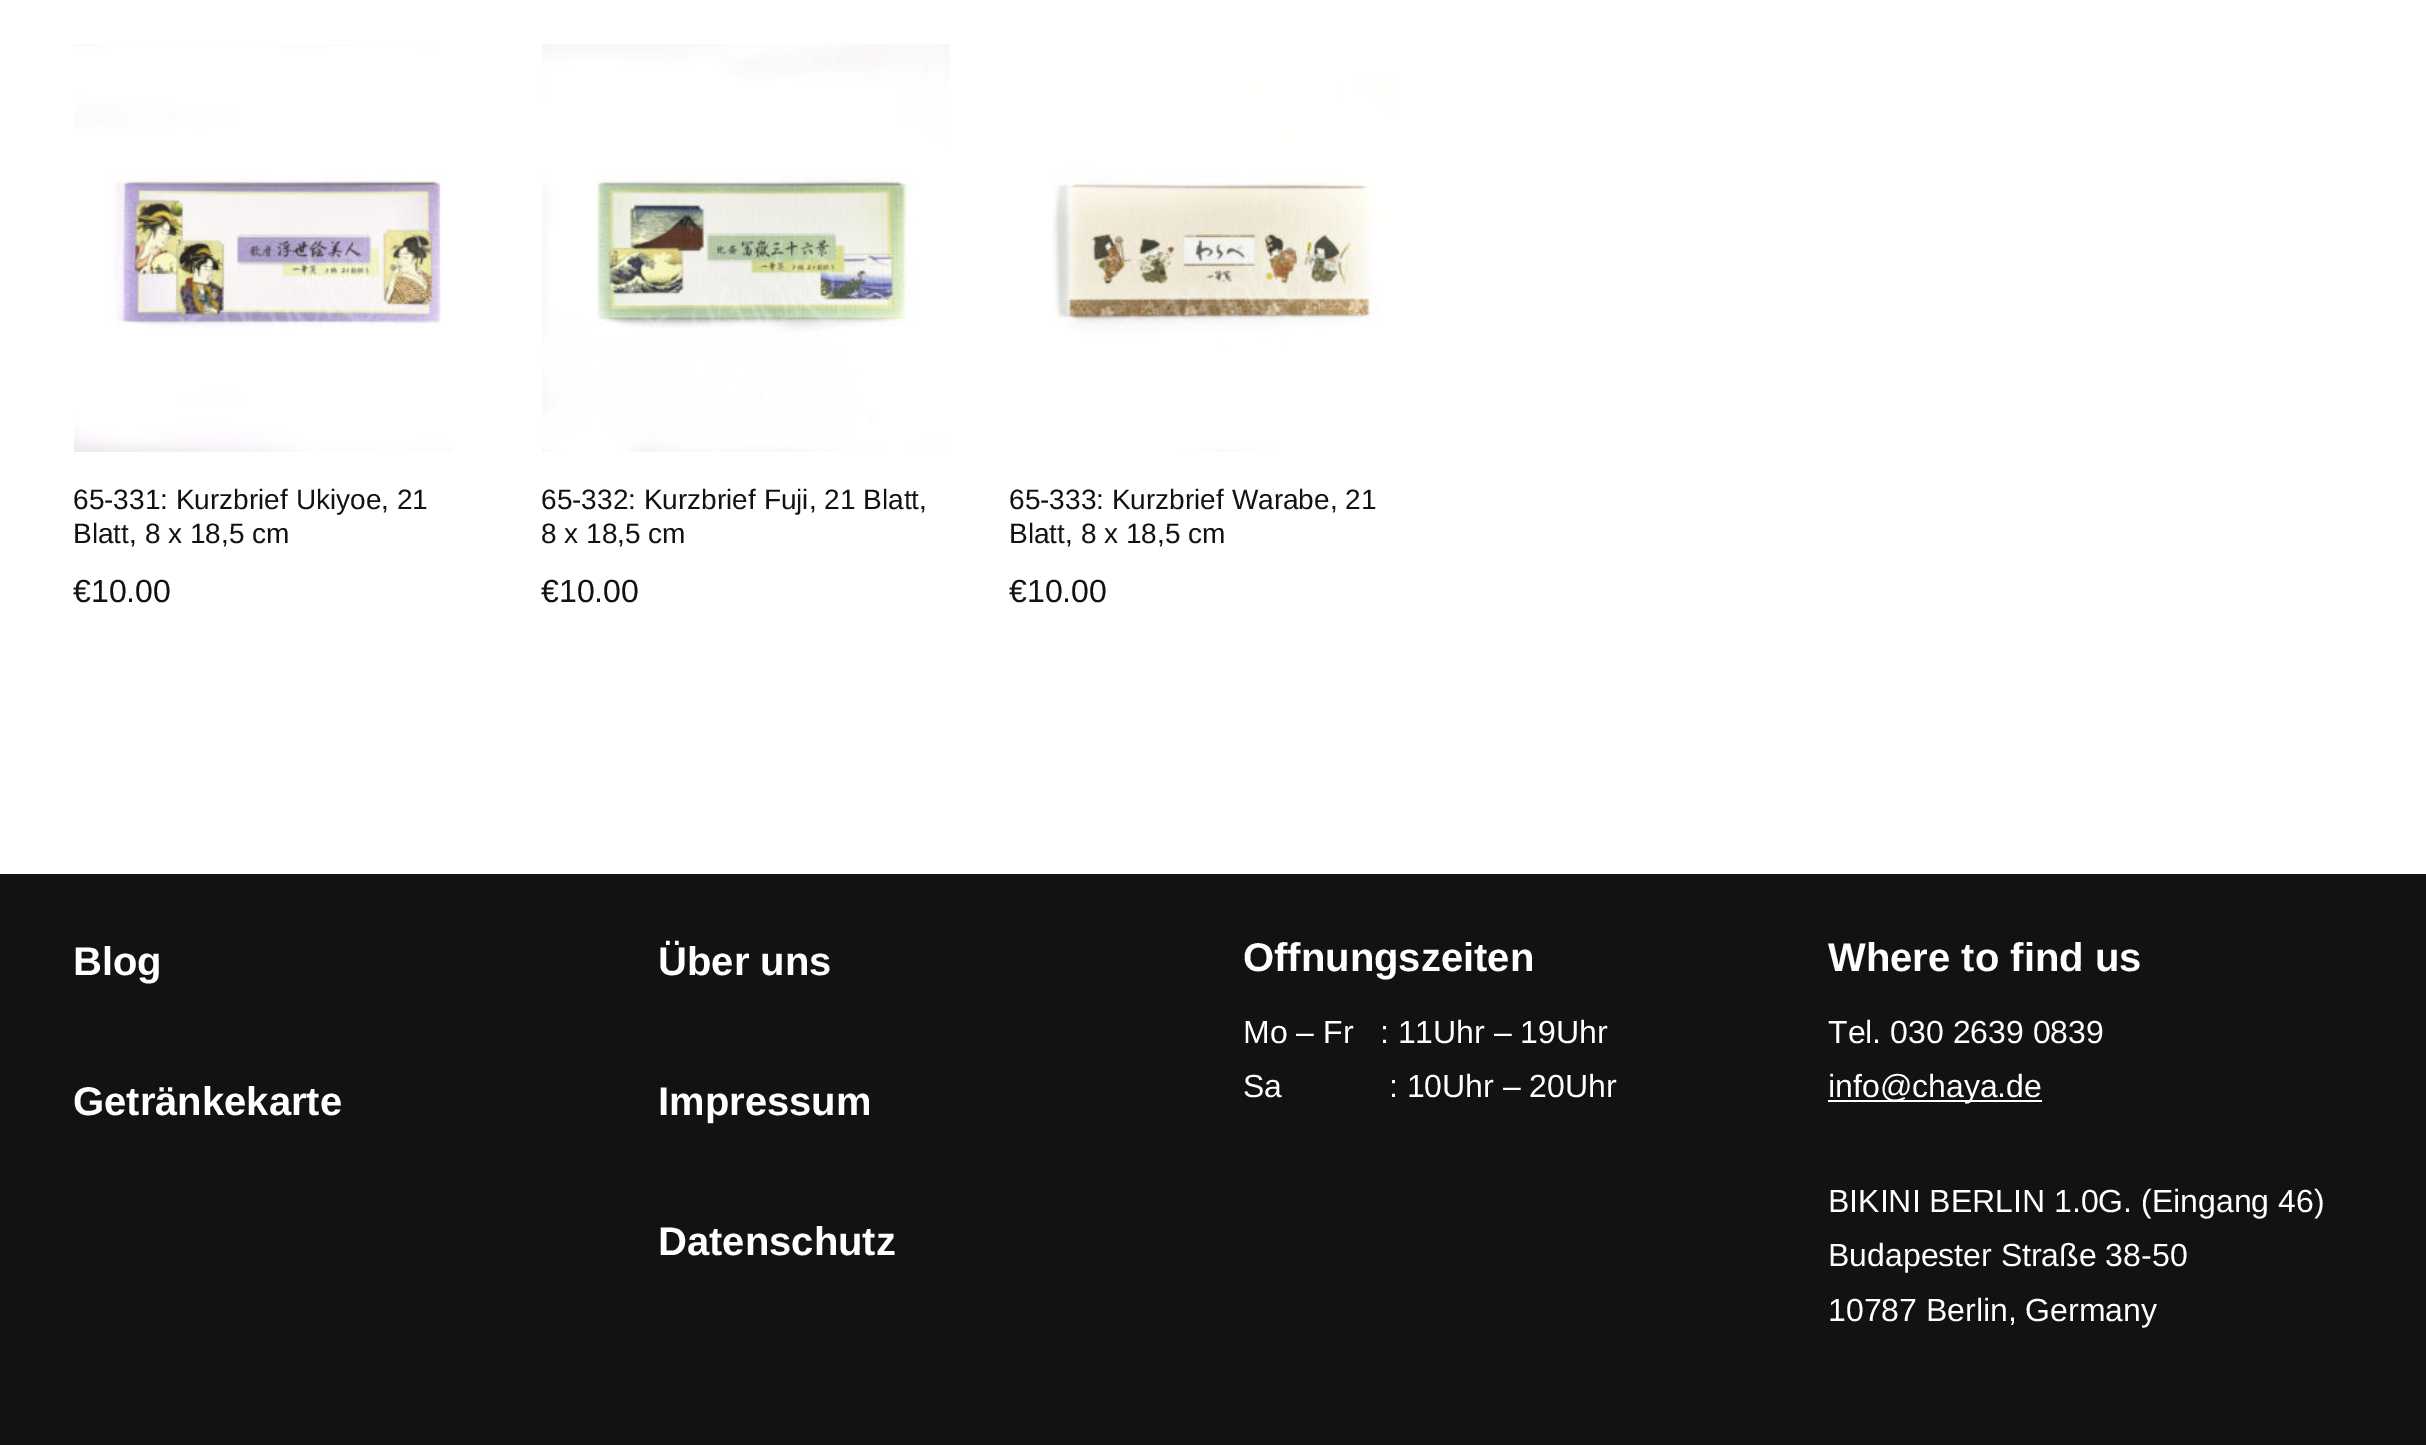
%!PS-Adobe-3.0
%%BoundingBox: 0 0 2426 1445
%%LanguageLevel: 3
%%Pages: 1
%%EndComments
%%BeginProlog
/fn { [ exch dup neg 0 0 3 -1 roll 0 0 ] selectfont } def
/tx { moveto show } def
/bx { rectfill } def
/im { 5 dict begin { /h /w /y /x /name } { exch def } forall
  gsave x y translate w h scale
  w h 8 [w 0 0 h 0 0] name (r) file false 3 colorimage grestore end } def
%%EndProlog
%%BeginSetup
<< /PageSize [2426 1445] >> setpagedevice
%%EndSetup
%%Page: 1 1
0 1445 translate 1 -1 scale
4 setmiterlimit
1 setgray
0 0 2426 1445 bx
(image0.raw) 74 44 379 408 im
/LiberationSans-Regular 28 fn
0.071 setgray
(65-331: Kurzbrief Ukiyoe, 21) 73 509 tx
(Blatt, 8 x 18,5 cm) 73 543 tx
/LiberationSans-Regular 32 fn
(€10.00) 73 602 tx
(image1.raw) 542 44 408 408 im
/LiberationSans-Regular 28 fn
(65-332: Kurzbrief Fuji, 21 Blatt,) 541 509 tx
(8 x 18,5 cm) 541 543 tx
/LiberationSans-Regular 32 fn
(€10.00) 541 602 tx
(image2.raw) 1052 76 344 376 im
/LiberationSans-Regular 28 fn
(65-333: Kurzbrief Warabe, 21) 1009 509 tx
(Blatt, 8 x 18,5 cm) 1009 543 tx
/LiberationSans-Regular 32 fn
(€10.00) 1009 602 tx
0 874 2426 571 bx
/LiberationSans-Bold 40 fn
1 setgray
(Blog) 73 975 tx
(Getränkekarte) 73 1115 tx
(Über uns) 658 975 tx
(Impressum) 658 1115 tx
(Datenschutz) 658 1255 tx
(Offnungszeiten) 1243 971 tx
/LiberationSans-Regular 32 fn
(Mo – Fr   : 11Uhr – 19Uhr) 1243 1043 tx
(Sa            : 10Uhr – 20Uhr) 1243 1097 tx
/LiberationSans-Bold 40 fn
(Where to find us) 1828 971 tx
/LiberationSans-Regular 32 fn
(Tel. 030 2639 0839) 1828 1043 tx
1828 1100 214 2 bx
(info@chaya.de) 1828 1097 tx
(BIKINI BERLIN 1.0G. \(Eingang 46\)) 1828 1212 tx
(Budapester Straße 38-50) 1828 1266 tx
(10787 Berlin, Germany) 1828 1321 tx
showpage
%%EOF
